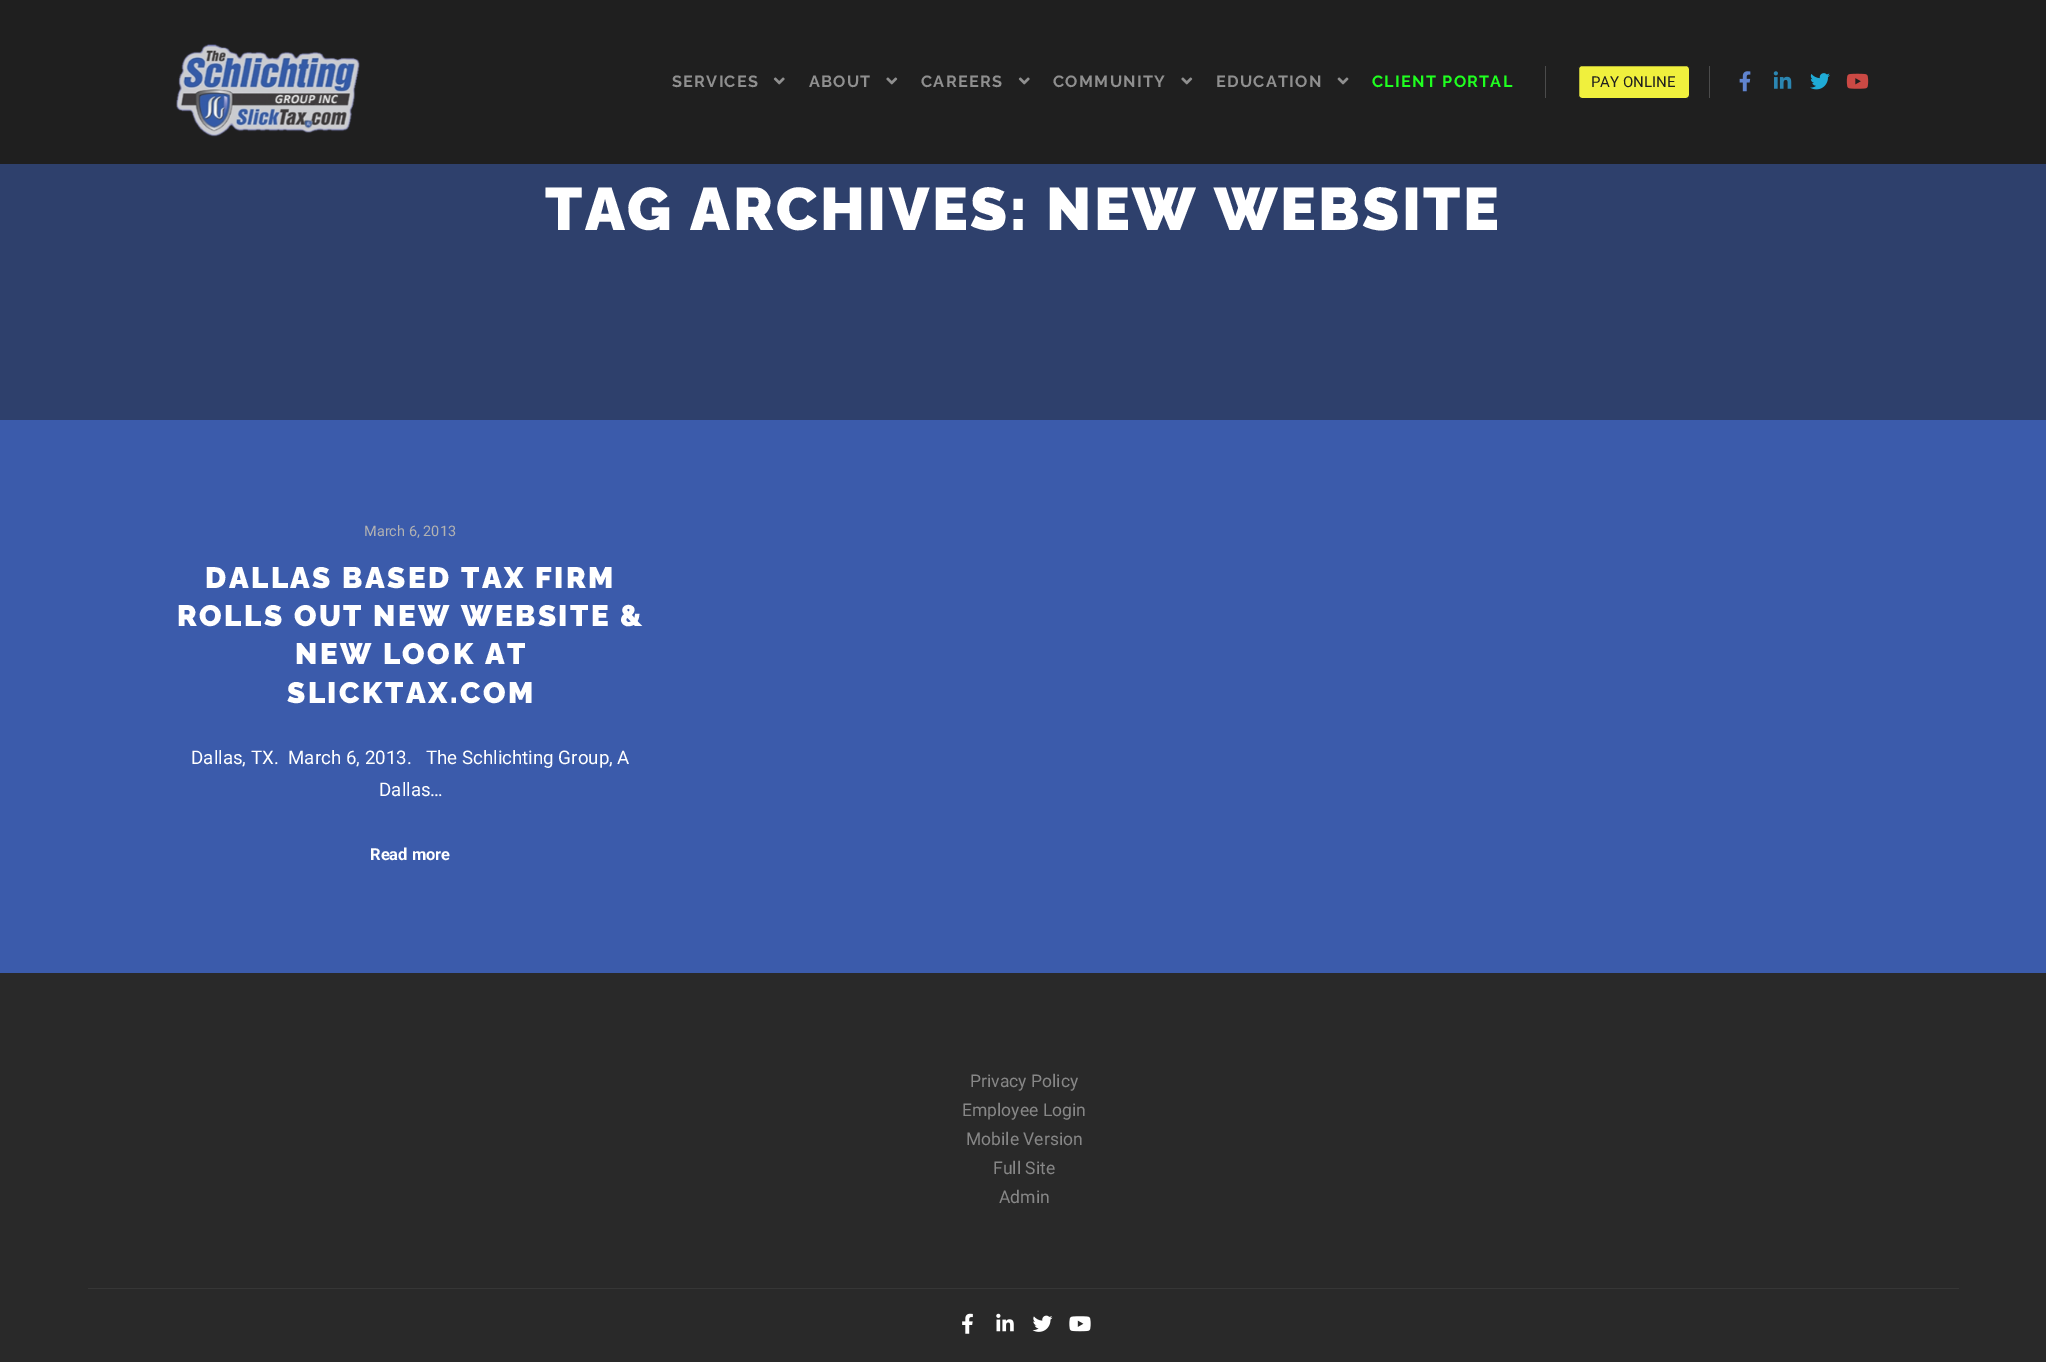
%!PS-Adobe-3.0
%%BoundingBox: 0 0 2046 1362
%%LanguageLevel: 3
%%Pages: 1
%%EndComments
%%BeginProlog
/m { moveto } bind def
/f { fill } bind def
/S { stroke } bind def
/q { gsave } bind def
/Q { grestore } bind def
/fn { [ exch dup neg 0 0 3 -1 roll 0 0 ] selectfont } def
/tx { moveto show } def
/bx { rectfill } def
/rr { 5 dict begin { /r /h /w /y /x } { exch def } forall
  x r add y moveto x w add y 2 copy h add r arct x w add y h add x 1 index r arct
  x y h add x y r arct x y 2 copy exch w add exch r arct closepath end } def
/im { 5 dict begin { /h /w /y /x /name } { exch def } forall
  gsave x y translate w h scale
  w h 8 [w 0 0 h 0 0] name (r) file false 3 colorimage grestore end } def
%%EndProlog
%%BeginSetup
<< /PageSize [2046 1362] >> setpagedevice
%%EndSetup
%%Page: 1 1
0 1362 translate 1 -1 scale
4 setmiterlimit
0.231 0.357 0.671 setrgbcolor
0 0 2046 1362 bx
0.122 setgray
0 0 2046 164 bx
(image0.raw) 176 44 184 93 im
/Raleway-Bold 16.25 fn
0.561 setgray
672 87 m 1.25 0 (SERVICES) ashow
(image1.raw) 773 77 12 8 im
809 87 m 1.25 0 (ABOUT) ashow
(image2.raw) 886 77 12 8 im
921 87 m 1.25 0 (CAREERS) ashow
(image1.raw) 1018 77 12 8 im
1053 87 m 1.25 0 (COMMUNITY) ashow
(image2.raw) 1181 77 12 8 im
1216 87 m 1.25 0 (EDUCATION) ashow
(image3.raw) 1337 77 12 8 im
0.122 1 0.122 setrgbcolor
1372 87 m 1.25 0 (CLIENT PORTAL) ashow
0.294 setgray
1545 66 1 32 bx
0.941 0.941 0.239 setrgbcolor
1578.5 65.5 111 33 3.5 rr q f Q
0.122 setgray
S
/Roboto-Regular 15 fn
(PAY ONLINE) 1591 87 tx
0.294 setgray
1709 66 1 32 bx
(image4.raw) 1739 71 12 21 im
(image5.raw) 1773 71 19 18 im
(image6.raw) 1810 73 20 17 im
(image7.raw) 1846 73 23 16 im
0.18 0.251 0.424 setrgbcolor
0 164 2046 256 bx
/Raleway-Black 60 fn
1 setgray
545 230 m 2.5 0 (TAG ARCHIVES: NEW WEBSITE) ashow
/Roboto-Regular 14.5 fn
0.698 setgray
(March 6, 2013) 364 536 tx
/Raleway-Black 29.5 fn
1 setgray
205 588 m 2.5 0 (DALLAS BASED TAX FIRM) ashow
177 626 m 2.5 0 (ROLLS OUT NEW WEBSITE &) ashow
295 664 m 2.5 0 (NEW LOOK AT) ashow
287 703 m 2.5 0 (SLICKTAX.COM) ashow
/Roboto-Regular 18.75 fn
(Dallas, TX.  March 6, 2013.   The Schlichting Group, A) 191 764 tx
(Dallas…) 379 796 tx
/Roboto-Bold 16.5 fn
(Read more) 370 860 tx
0.161 setgray
0 973 2046 389 bx
/Roboto-Regular 17.5 fn
0.529 setgray
(Privacy Policy) 970 1087 tx
(Employee Login) 962 1116 tx
(Mobile Version) 966 1145 tx
(Full Site) 993 1174 tx
(Admin) 999 1203 tx
0.212 setgray
88 1288 1871 1 bx
(image8.raw) 962 1313 11 21 im
(image9.raw) 996 1313 18 19 im
(image10.raw) 1032 1315 21 17 im
(image11.raw) 1069 1316 22 16 im
showpage
%%EOF
